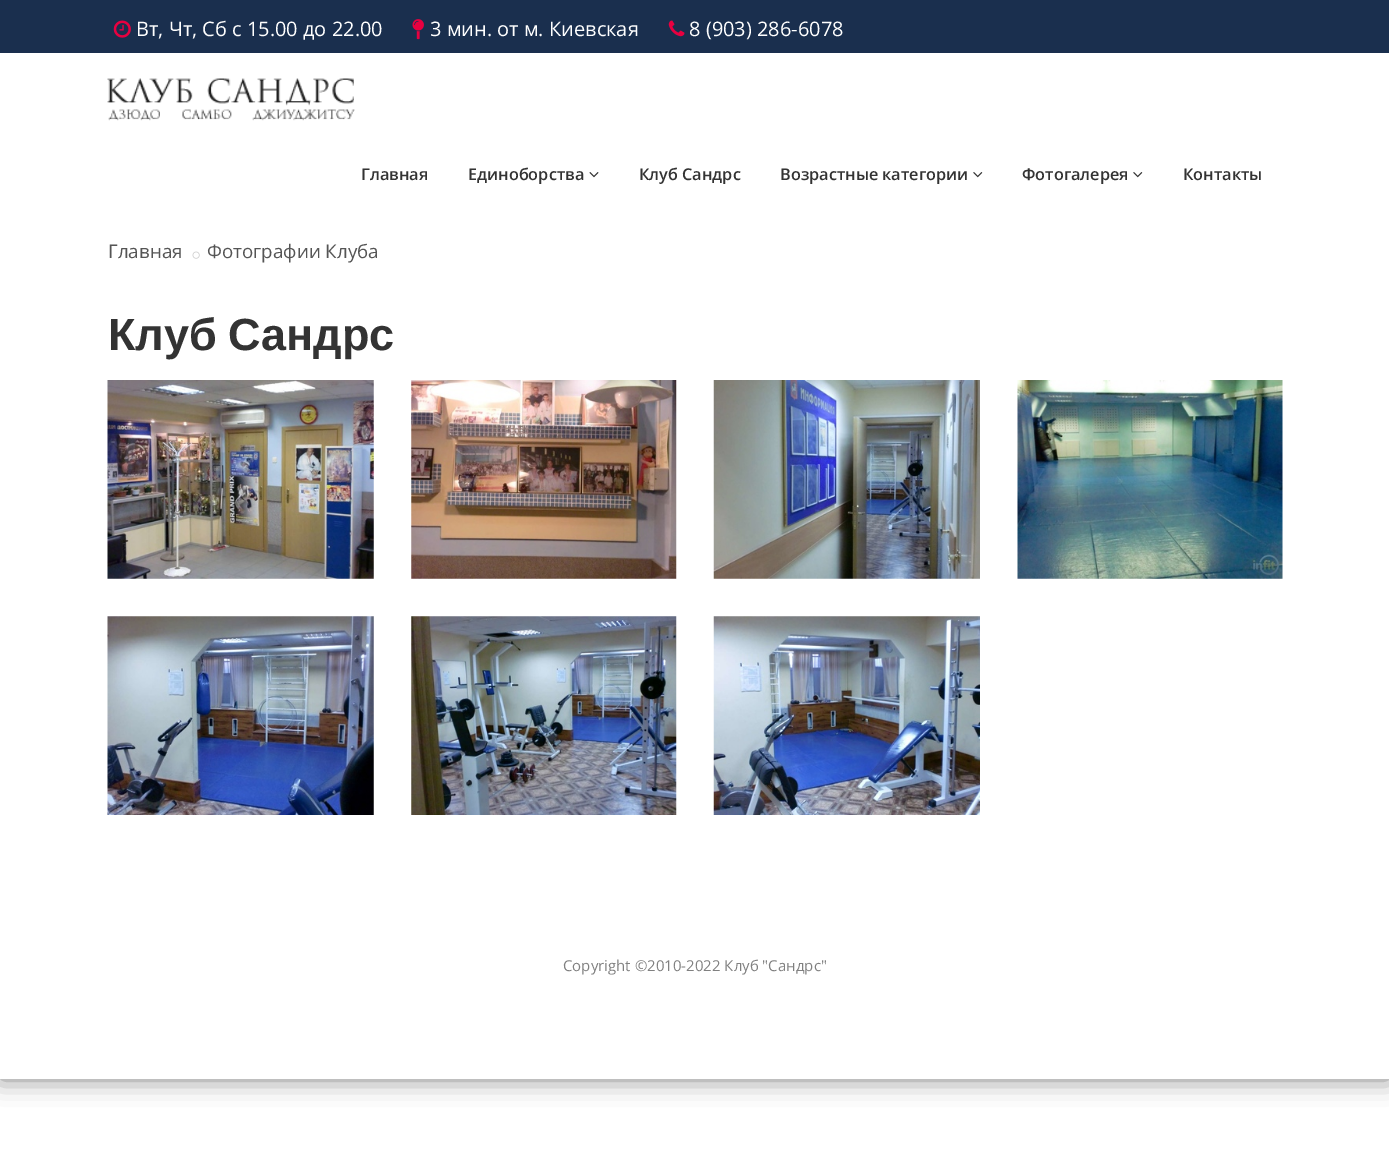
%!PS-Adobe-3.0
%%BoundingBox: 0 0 1389 1159
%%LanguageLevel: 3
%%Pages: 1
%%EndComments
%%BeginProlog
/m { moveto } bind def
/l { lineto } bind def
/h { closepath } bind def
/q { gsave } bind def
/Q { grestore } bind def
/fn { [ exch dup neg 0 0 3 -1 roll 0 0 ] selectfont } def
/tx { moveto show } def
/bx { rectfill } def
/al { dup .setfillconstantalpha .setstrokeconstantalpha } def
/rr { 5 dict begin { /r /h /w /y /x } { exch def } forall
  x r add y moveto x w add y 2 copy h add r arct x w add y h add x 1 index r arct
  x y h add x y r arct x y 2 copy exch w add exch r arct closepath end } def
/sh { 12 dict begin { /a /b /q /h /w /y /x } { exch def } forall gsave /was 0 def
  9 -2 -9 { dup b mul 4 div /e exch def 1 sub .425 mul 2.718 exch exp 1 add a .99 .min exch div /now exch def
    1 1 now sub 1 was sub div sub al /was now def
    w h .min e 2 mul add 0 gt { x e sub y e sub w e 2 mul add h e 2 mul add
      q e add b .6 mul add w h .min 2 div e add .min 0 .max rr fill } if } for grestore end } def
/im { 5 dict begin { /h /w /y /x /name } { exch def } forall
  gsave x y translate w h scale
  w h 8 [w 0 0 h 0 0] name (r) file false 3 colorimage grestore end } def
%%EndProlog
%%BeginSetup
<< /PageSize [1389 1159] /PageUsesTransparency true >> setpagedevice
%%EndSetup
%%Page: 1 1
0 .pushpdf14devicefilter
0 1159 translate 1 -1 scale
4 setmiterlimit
1 setgray
0 0 1389 1159 bx
q
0 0 m 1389 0 l 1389 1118 l 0 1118 l h 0 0 m 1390 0 l 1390 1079 l 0 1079 l h eoclip newpath
0 setgray
0 0 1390 1079 0 12.5 0.5 sh
Q
0.102 0.184 0.306 setrgbcolor
0 0 1389 53 bx
(image0.raw) 113 20 18 18 im
/OpenSans-Regular 20 fn
1 setgray
(Вт, Чт, Сб с 15.00 до 22.00) 136 36 tx
(image1.raw) 412 19 12 21 im
(3 мин. от м. Киевская) 430 36 tx
(image2.raw) 668 20 17 17 im
(8 \(903\) 286-6078) 689 36 tx
(image3.raw) 107 78 248 43 im
/OpenSans-SemiBold 16.25 fn
0.2 setgray
(Главная) 361 180 tx
(Единоборства) 468 180 tx
(image4.raw) 589 172 10 6 im
(Клуб Сандрс) 639 180 tx
(Возрастные категории) 780 180 tx
(image5.raw) 973 172 10 6 im
(Фотогалерея) 1022 180 tx
(image5.raw) 1133 172 10 6 im
(Контакты) 1183 180 tx
/OpenSans-Regular 18.75 fn
0.333 setgray
(Главная) 108 258 tx
(image6.raw) 192 251 8 8 im
(Фотографии Клуба) 207 258 tx
/LiberationSans-Bold 45 fn
0.2 setgray
108 350 m -1 0 32 (Клуб Сандрс) widthshow
(image7.raw) 107 380 267 199 im
(image8.raw) 411 380 266 199 im
(image9.raw) 713 380 267 199 im
(image10.raw) 1017 380 266 199 im
(image11.raw) 107 616 267 199 im
(image12.raw) 411 616 266 199 im
(image13.raw) 713 616 267 199 im
/OpenSans-Regular 15 fn
0.502 setgray
(Copyright ©2010-2022 Клуб "Сандрс") 563 971 tx
.poppdf14devicefilter showpage
%%EOF
